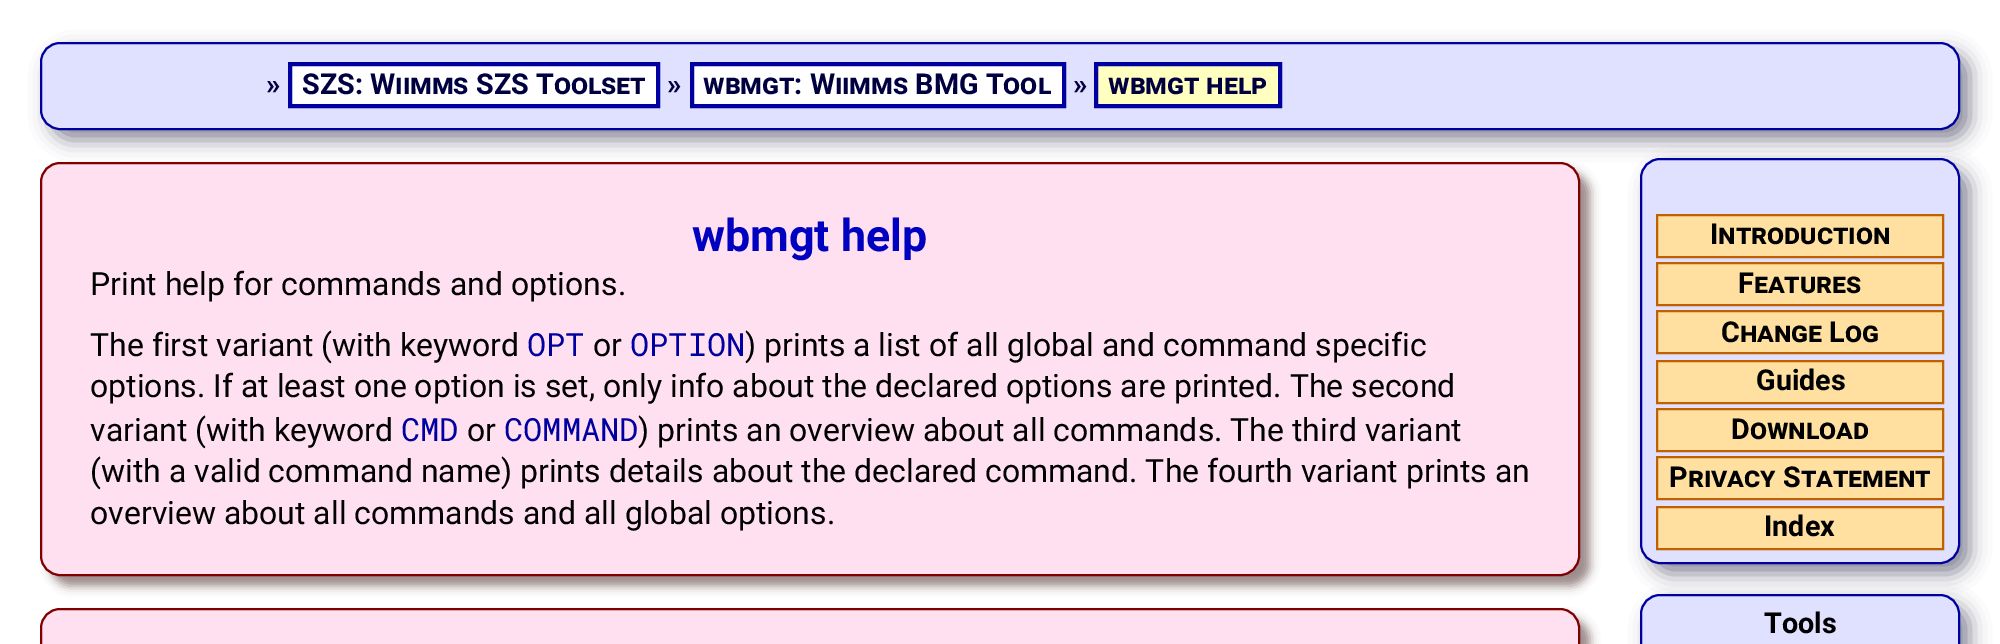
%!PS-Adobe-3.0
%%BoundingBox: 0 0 2000 644
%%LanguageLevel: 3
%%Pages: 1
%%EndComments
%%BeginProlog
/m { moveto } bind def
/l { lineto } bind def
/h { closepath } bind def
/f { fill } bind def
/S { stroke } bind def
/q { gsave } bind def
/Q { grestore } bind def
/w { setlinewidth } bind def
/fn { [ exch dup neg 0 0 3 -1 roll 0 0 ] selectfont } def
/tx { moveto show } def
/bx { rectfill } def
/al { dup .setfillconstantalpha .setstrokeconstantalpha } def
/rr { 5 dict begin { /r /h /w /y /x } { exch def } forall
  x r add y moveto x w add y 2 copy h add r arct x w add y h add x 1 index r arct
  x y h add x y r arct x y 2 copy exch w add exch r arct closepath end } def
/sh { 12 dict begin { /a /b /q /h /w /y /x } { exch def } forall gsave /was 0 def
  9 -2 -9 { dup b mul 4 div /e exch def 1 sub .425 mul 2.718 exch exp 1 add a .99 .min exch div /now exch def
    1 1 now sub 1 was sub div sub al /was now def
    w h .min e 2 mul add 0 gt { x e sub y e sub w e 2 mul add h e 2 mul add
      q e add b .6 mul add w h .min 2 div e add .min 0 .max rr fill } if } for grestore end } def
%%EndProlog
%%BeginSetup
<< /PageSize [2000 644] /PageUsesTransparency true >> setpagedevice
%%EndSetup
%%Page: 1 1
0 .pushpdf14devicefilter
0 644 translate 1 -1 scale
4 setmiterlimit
1 setgray
0 0 2000 644 bx
0.533 0.533 0.6 setrgbcolor
50 52 1920 88 20 10 1 sh
0.878 0.878 1 setrgbcolor
41 43 1918 86 19 rr q f Q
0 0 0.627 setrgbcolor
2 w
S
/Roboto-Bold 28.75 fn
0 0 0.251 setrgbcolor
(») 266 94 tx
1 setgray
290 64 m 658 64 l 658 106 l 290 106 l h q f Q
0 0 0.627 setrgbcolor
4 w
S
/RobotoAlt-Bold 28.75 fn
0 0 0.251 setrgbcolor
(SZS: Wiimms SZS Toolset) 302 94 tx
/Roboto-Bold 28.75 fn
(») 667 94 tx
1 setgray
692 64 m 1064 64 l 1064 106 l 692 106 l h q f Q
0 0 0.627 setrgbcolor
S
/RobotoAlt-Bold 28.75 fn
0 0 0.251 setrgbcolor
(wbmgt: Wiimms BMG Tool) 703 94 tx
/Roboto-Bold 28.75 fn
(») 1073 94 tx
1 1 0.753 setrgbcolor
1096 64 m 1280 64 l 1280 106 l 1096 106 l h q f Q
0 0 0.627 setrgbcolor
S
/RobotoAlt-Bold 28.75 fn
0 0 0.251 setrgbcolor
(wbmgt help) 1108 94 tx
0.6 0.533 0.533 setrgbcolor
50 172 1540 414 20 5 1 sh
1 0.878 0.941 setrgbcolor
41 163 1538 412 19 rr q f Q
0.502 0 0 setrgbcolor
2 w
S
/Roboto-Bold 44.75 fn
0 0 0.753 setrgbcolor
(wbmgt help) 692 251 tx
/Roboto-Regular 32 fn
0 setgray
(Print help for commands and options.) 90 295 tx
(The first variant \(with keyword) 90 356 tx
/RobotoMono-Regular 32 fn
0 0 0.627 setrgbcolor
(OPT) 527 356 tx
/Roboto-Regular 32 fn
0 setgray
(or) 593 356 tx
/RobotoMono-Regular 32 fn
0 0 0.627 setrgbcolor
(OPTION) 630 356 tx
/Roboto-Regular 32 fn
0 setgray
(\) prints a list of all global and command specific) 745 356 tx
(options. If at least one option is set, only info about the declared options are printed. The second) 90 397 tx
(variant \(with keyword) 90 441 tx
/RobotoMono-Regular 32 fn
0 0 0.627 setrgbcolor
(CMD) 401 441 tx
/Roboto-Regular 32 fn
0 setgray
(or) 467 441 tx
/RobotoMono-Regular 32 fn
0 0 0.627 setrgbcolor
(COMMAND) 504 441 tx
/Roboto-Regular 32 fn
0 setgray
(\) prints an overview about all commands. The third variant) 638 441 tx
(\(with a valid command name\) prints details about the declared command. The fourth variant prints an) 90 482 tx
(overview about all commands and all global options.) 90 524 tx
0.533 0.533 0.6 setrgbcolor
1650 168 320 406 20 10 1 sh
0.878 0.878 1 setrgbcolor
1641 159 318 404 19 rr q f Q
0 0 0.627 setrgbcolor
S
1 0.878 0.627 setrgbcolor
1657 215 m 1943 215 l 1943 257 l 1657 257 l h q f Q
0.753 0.376 0 setrgbcolor
S
/RobotoAlt-Bold 28.75 fn
0 setgray
(Introduction) 1710 244 tx
1 0.878 0.627 setrgbcolor
1657 263 m 1943 263 l 1943 305 l 1657 305 l h q f Q
0.753 0.376 0 setrgbcolor
S
0 setgray
(Features) 1738 293 tx
1 0.878 0.627 setrgbcolor
1657 311 m 1943 311 l 1943 353 l 1657 353 l h q f Q
0.753 0.376 0 setrgbcolor
S
0 setgray
(Change Log) 1721 342 tx
1 0.878 0.627 setrgbcolor
1657 361 m 1943 361 l 1943 403 l 1657 403 l h q f Q
0.753 0.376 0 setrgbcolor
S
/Roboto-Bold 28.75 fn
0 setgray
(Guides) 1756 390 tx
1 0.878 0.627 setrgbcolor
1657 409 m 1943 409 l 1943 451 l 1657 451 l h q f Q
0.753 0.376 0 setrgbcolor
S
/RobotoAlt-Bold 28.75 fn
0 setgray
(Download) 1731 439 tx
1 0.878 0.627 setrgbcolor
1657 457 m 1943 457 l 1943 499 l 1657 499 l h q f Q
0.753 0.376 0 setrgbcolor
S
0 setgray
(Privacy Statement) 1669 487 tx
1 0.878 0.627 setrgbcolor
1657 507 m 1943 507 l 1943 549 l 1657 549 l h q f Q
0.753 0.376 0 setrgbcolor
S
/Roboto-Bold 28.75 fn
0 setgray
(Index) 1764 536 tx
0.533 0.533 0.6 setrgbcolor
1650 604 320 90 20 10 1 sh
0.878 0.878 1 setrgbcolor
1641 595 318 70 19 rr q f Q
0 0 0.627 setrgbcolor
S
0 setgray
(Tools) 1764 633 tx
0.6 0.533 0.533 setrgbcolor
50 618 1540 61 20 5 1 sh
1 0.878 0.941 setrgbcolor
41 609 1538 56 19 rr q f Q
0.502 0 0 setrgbcolor
S
.poppdf14devicefilter showpage
%%EOF
